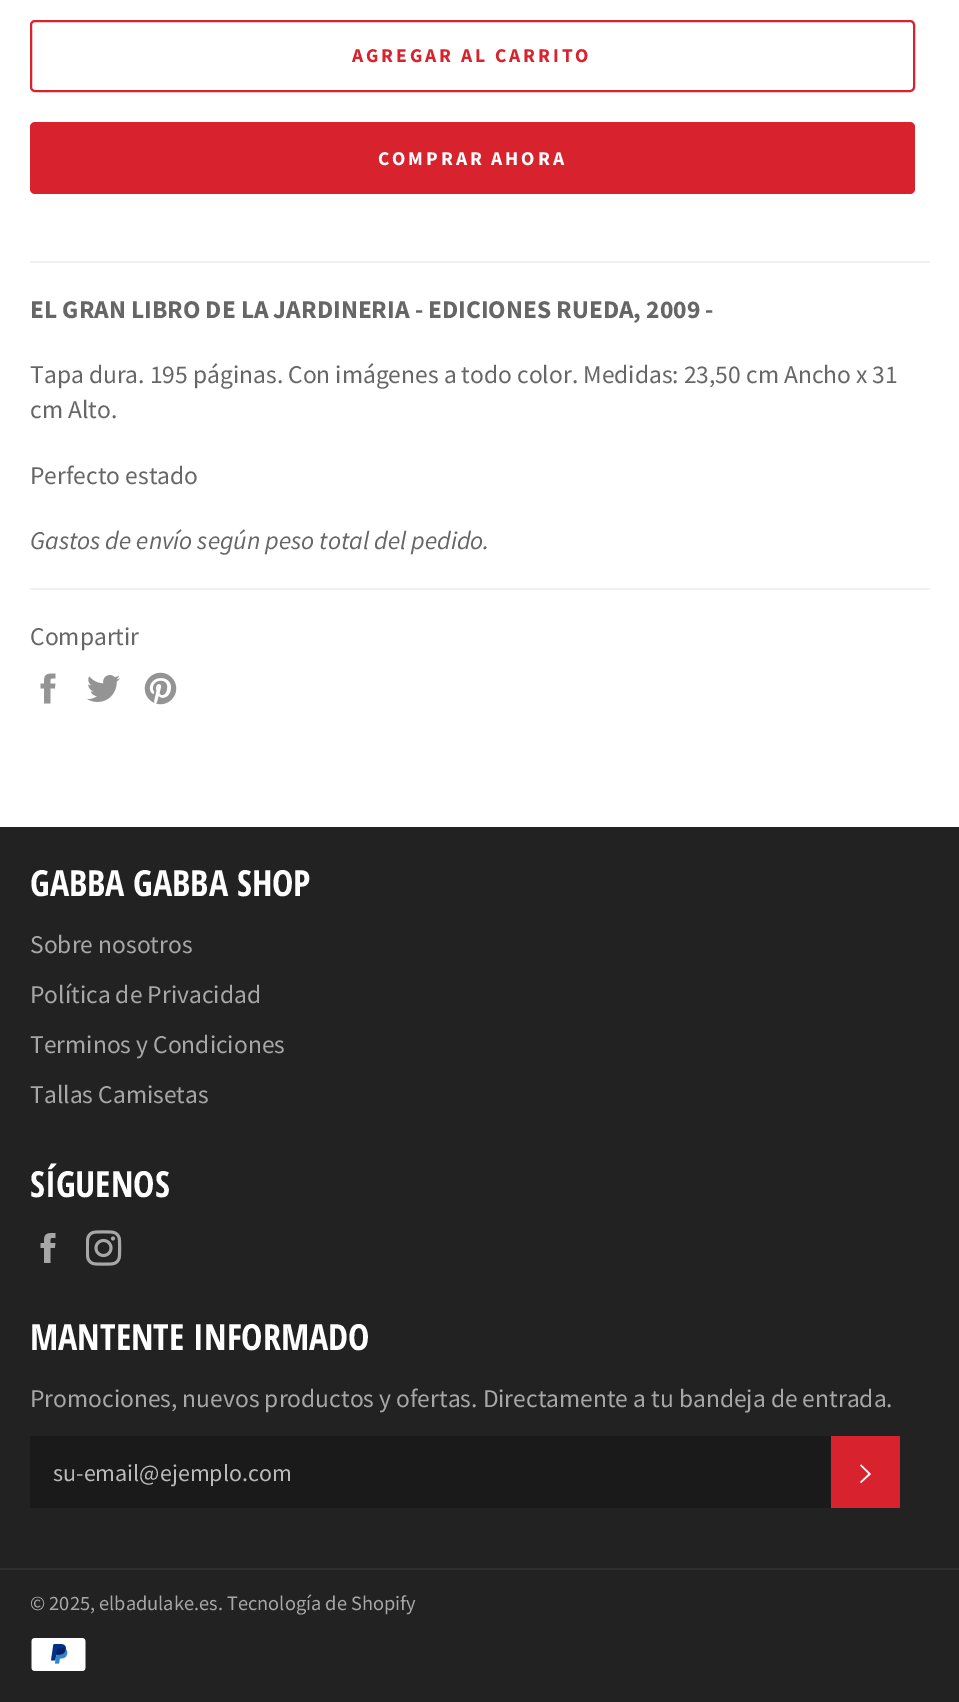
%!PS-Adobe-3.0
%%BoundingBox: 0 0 959 1702
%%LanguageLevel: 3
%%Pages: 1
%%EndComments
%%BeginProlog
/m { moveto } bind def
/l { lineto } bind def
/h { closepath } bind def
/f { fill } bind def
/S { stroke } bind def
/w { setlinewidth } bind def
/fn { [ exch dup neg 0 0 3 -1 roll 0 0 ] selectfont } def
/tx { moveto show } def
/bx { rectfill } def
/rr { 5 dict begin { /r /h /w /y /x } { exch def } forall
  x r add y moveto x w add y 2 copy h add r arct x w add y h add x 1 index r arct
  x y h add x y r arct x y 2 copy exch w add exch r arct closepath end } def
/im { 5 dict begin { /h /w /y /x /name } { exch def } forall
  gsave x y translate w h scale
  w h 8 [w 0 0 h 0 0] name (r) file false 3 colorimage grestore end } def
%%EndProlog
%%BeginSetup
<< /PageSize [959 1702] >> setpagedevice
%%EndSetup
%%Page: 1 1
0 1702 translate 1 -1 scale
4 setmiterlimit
1 setgray
0 0 959 1702 bx
0.847 0.137 0.184 setrgbcolor
2 w
31 21 883 70 4 rr S
/SourceSansPro-Bold 19.5 fn
352 62 m 2.9 0 (AGREGAR AL CARRITO) ashow
30 122 885 72 5 rr f
1 setgray
378 165 m 2.9 0 (COMPRAR AHORA) ashow
0.941 setgray
30 261 900 2 bx
/SourceSansPro-Bold 25.5 fn
0.4 setgray
(EL GRAN LIBRO DE LA JARDINERIA - EDICIONES RUEDA, 2009 -) 30 318 tx
/SourceSansPro-Regular 25.5 fn
(Tapa dura. 195 páginas. Con imágenes a todo color. Medidas: 23,50 cm Ancho x 31) 30 383 tx
(cm Alto.) 30 418 tx
(Perfecto estado) 30 484 tx
/SourceSansPro-Italic 25.5 fn
(Gastos de envío según peso total del pedido.) 30 549 tx
0.941 setgray
30 588 900 2 bx
/SourceSansPro-Regular 25.5 fn
0.4 setgray
(Compartir) 30 645 tx
(image0.raw) 40 673 16 31 im
(image1.raw) 87 675 33 27 im
(image2.raw) 144 672 33 33 im
0.133 setgray
0 827 959 875 bx
/OpenSansCondensed-Bold 36 fn
1 setgray
(GABBA GABBA SHOP) 30 896 tx
/SourceSansPro-Regular 25.5 fn
0.655 setgray
(Sobre nosotros) 30 953 tx
(Política de Privacidad) 30 1003 tx
(Terminos y Condiciones) 30 1053 tx
(Tallas Camisetas) 30 1103 tx
/OpenSansCondensed-Bold 36 fn
1 setgray
(SÍGUENOS) 30 1197 tx
(image3.raw) 40 1233 16 30 im
(image4.raw) 86 1230 36 36 im
(MANTENTE INFORMADO) 30 1350 tx
/SourceSansPro-Regular 25.5 fn
0.655 setgray
(Promociones, nuevos productos y ofertas. Directamente a tu bandeja de entrada.) 30 1407 tx
0.102 setgray
30 1436 801 72 bx
/SourceSansPro-Regular 24 fn
0.729 setgray
(su-email@ejemplo.com) 53 1481 tx
0.847 0.137 0.184 setrgbcolor
831 1436 69 72 bx
1 setgray
860 1465.5 m 861 1464.5 l 871 1474 l 861 1483 l 860 1482 l 868.5 1474 l h f
0.184 setgray
0 1568 959 2 bx
/SourceSansPro-Regular 20.4 fn
0.655 setgray
(© 2025, elbadulake.es. Tecnología de Shopify) 30 1610 tx
(image5.raw) 31 1638 55 33 im
showpage
%%EOF
